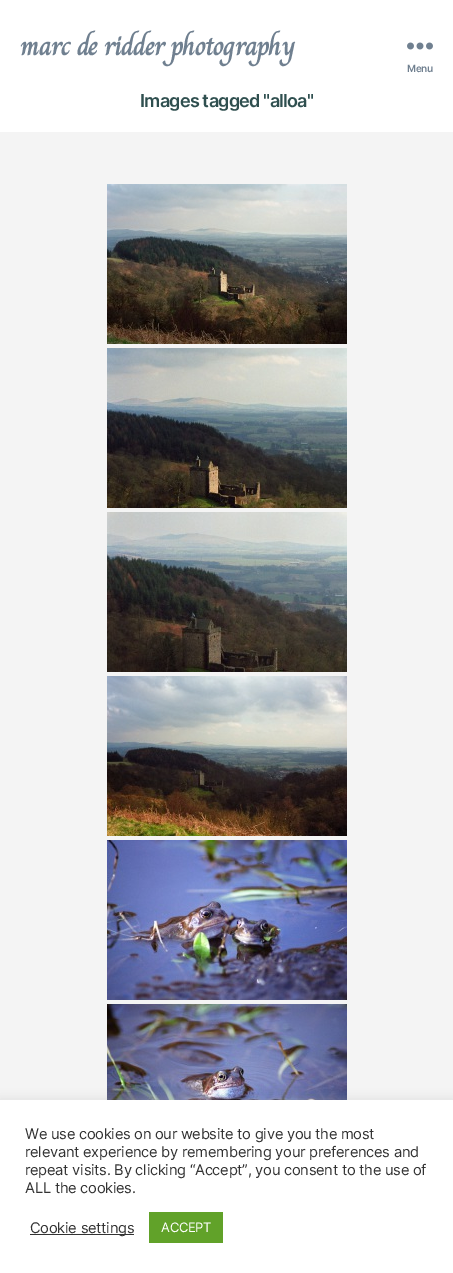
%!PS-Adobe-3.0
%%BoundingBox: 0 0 453 1273
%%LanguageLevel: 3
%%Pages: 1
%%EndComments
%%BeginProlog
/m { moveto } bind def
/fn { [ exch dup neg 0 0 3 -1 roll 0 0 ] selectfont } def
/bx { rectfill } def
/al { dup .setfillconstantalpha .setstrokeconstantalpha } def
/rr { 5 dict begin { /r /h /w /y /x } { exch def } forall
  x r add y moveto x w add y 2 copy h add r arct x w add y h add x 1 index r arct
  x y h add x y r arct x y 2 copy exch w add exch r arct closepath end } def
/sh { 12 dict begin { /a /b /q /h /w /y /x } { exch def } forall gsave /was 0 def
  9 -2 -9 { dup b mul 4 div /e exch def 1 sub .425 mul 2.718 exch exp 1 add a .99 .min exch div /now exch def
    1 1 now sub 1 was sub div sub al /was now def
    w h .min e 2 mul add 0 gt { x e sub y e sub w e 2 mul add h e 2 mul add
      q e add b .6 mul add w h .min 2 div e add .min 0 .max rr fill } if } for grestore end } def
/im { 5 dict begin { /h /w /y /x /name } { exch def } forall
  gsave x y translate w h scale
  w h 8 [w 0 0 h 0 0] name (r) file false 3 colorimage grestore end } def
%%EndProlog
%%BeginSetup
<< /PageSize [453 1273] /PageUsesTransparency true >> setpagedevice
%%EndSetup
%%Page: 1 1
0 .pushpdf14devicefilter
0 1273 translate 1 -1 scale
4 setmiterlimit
0.957 setgray
0 0 453 1273 bx
1 setgray
0 0 453 132 bx
/Charm-Bold 28 fn
0.439 0.502 0.565 setrgbcolor
20 55 m -1.15 0 (marc de ridder photography) ashow
(image0.raw) 407 42 26 8 im
/Inter-SemiBold 10 fn
407 72 m -0.27 0 (Menu) ashow
/Inter-SemiBold 18 fn
0.184 0.31 0.31 setrgbcolor
140 107 m -0.75 0 (Images tagged "alloa") ashow
(image1.raw) 107 184 240 160 im
(image2.raw) 107 348 240 160 im
(image3.raw) 107 512 240 160 im
(image4.raw) 107 676 240 160 im
(image5.raw) 107 840 240 160 im
(image6.raw) 107 1004 240 96 im
0.675 0.671 0.671 setrgbcolor
0 1099 453 173 0 5 0.3 sh
1 setgray
0 1100 453 173 bx
/Inter-Regular 14.7 fn
0.2 setgray
25 1139 m -0.27 0 (We use cookies on our website to give you the most) ashow
25 1157 m -0.27 0 (relevant experience by remembering your preferences and) ashow
25 1175 m -0.27 0 (repeat visits. By clicking “Accept”, you consent to the use of) ashow
25 1193 m -0.27 0 (ALL the cookies.) ashow
30 1234 104 1 bx
30 1233 m -0.27 0 (Cookie settings) ashow
0.38 0.635 0.161 setrgbcolor
149 1212 74 31 bx
/Inter-Regular 13 fn
1 setgray
161 1232 m -0.27 0 (ACCEPT) ashow
.poppdf14devicefilter showpage
%%EOF
